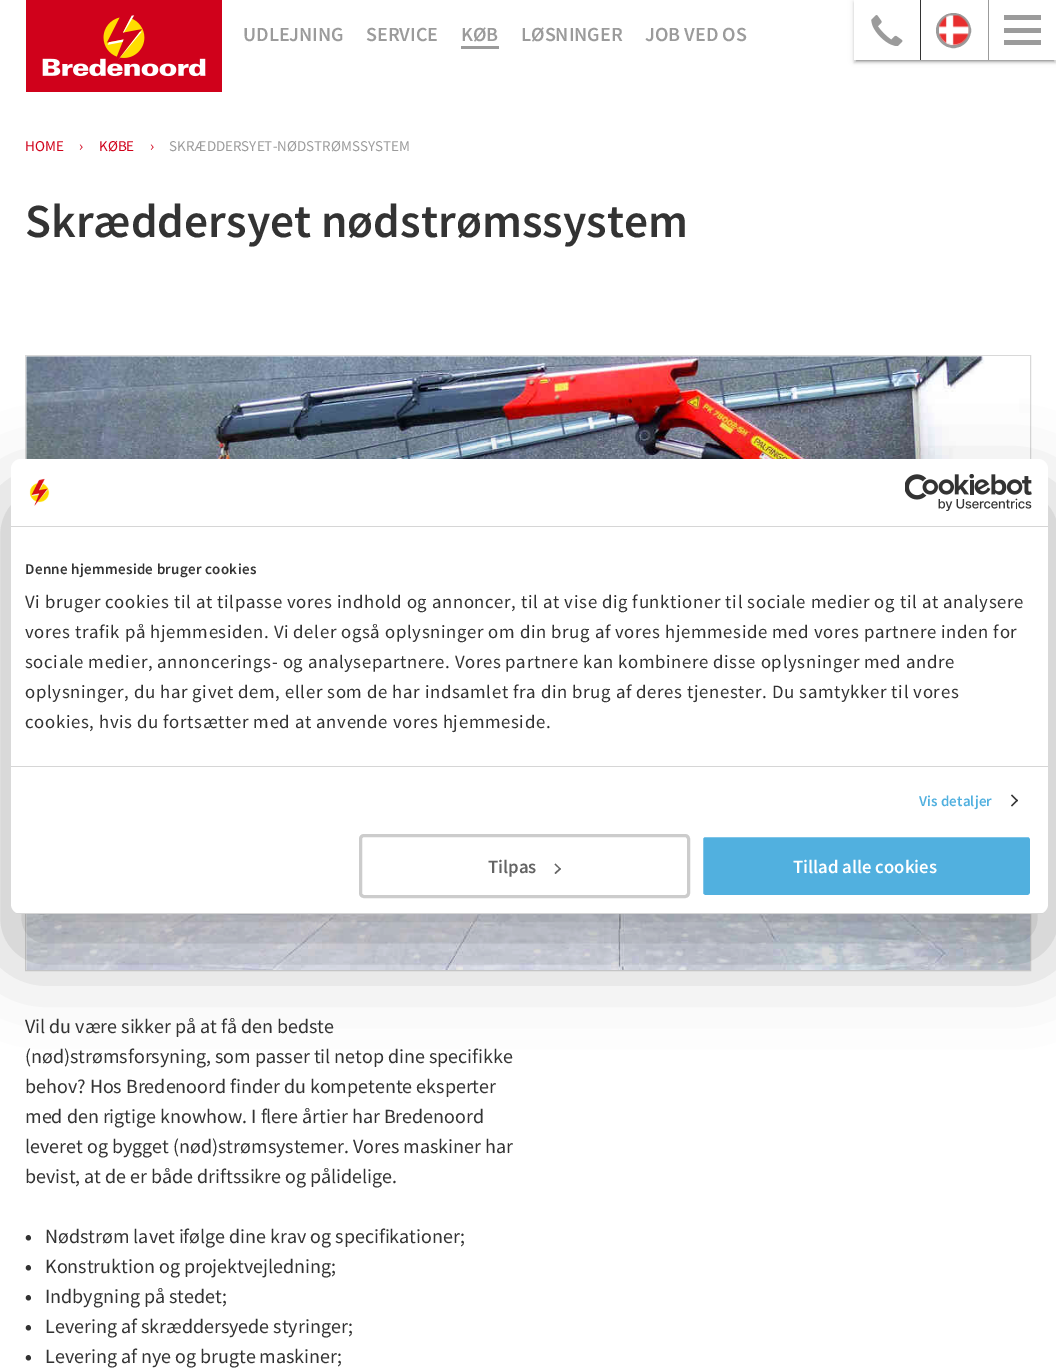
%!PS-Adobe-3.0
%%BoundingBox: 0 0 1056 1372
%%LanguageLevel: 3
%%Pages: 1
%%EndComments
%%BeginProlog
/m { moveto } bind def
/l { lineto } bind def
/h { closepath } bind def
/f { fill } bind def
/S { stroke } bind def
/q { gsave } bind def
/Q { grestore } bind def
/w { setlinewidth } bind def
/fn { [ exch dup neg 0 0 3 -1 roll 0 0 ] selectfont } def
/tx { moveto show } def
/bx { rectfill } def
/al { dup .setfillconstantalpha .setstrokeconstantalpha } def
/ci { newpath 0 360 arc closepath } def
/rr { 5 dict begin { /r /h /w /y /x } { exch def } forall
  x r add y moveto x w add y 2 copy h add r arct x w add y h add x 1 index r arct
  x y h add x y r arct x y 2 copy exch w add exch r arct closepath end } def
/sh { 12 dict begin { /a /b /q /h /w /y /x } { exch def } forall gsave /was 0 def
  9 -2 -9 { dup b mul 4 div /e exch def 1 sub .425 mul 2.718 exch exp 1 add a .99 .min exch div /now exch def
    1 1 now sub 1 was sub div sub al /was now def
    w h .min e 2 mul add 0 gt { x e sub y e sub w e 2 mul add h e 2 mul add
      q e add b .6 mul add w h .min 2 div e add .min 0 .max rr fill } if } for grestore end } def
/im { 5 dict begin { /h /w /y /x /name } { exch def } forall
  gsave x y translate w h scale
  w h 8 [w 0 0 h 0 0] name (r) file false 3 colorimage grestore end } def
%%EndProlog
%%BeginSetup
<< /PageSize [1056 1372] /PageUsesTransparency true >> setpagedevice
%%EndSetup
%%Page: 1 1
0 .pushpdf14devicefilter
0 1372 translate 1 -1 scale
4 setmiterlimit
1 setgray
0 0 1056 1372 bx
(image0.raw) 26 0 196 92 im
/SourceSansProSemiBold-SemiBold 20 fn
0.608 setgray
(UDLEJNING) 243 41 tx
(SERVICE) 366 41 tx
(KØB) 461 41 tx
461 46 38 3 bx
(LØSNINGER) 521 41 tx
(JOB VED OS) 645 41 tx
/SourceSansPro-Regular 15 fn
0.816 0.008 0.106 setrgbcolor
(HOME) 25 151 tx
(›) 79 151 tx
(KØBE) 99 151 tx
(›) 150 151 tx
0.608 setgray
(SKRÆDDERSYET-NØDSTRØMSSYSTEM) 169 151 tx
/SourceSansProSemiBold-SemiBold 47.5 fn
0.2 setgray
(Skræddersyet nødstrømssystem) 25 237 tx
0.847 setgray
25.5 355.5 1005 615 rectstroke
(image1.raw) 26 356 1004 614 im
/SourceSansPro-Regular 20 fn
0.2 setgray
(Vil du være sikker på at få den bedste) 25 1033 tx
(\(nød\)strømsforsyning, som passer til netop dine specifikke) 25 1063 tx
(behov? Hos Bredenoord finder du kompetente eksperter) 25 1093 tx
(med den rigtige knowhow. I flere årtier har Bredenoord) 25 1123 tx
(leveret og bygget \(nød\)strømsystemer. Vores maskiner har) 25 1153 tx
(bevist, at de er både driftssikre og pålidelige.) 25 1183 tx
/SourceSansPro-Bold 20 fn
(•) 25 1243 tx
/SourceSansPro-Regular 20 fn
(Nødstrøm lavet ifølge dine krav og specifikationer;) 45 1243 tx
/SourceSansPro-Bold 20 fn
(•) 25 1273 tx
/SourceSansPro-Regular 20 fn
(Konstruktion og projektvejledning;) 45 1273 tx
/SourceSansPro-Bold 20 fn
(•) 25 1303 tx
/SourceSansPro-Regular 20 fn
(Indbygning på stedet;) 45 1303 tx
/SourceSansPro-Bold 20 fn
(•) 25 1333 tx
/SourceSansPro-Regular 20 fn
(Levering af skræddersyede styringer;) 45 1333 tx
/SourceSansPro-Bold 20 fn
(•) 25 1363 tx
/SourceSansPro-Regular 20 fn
(Levering af nye og brugte maskiner;) 45 1363 tx
q
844 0 m 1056 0 l 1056 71 l 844 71 l h 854 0 m 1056 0 l 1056 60 l 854 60 l h eoclip newpath
0 setgray
854 1 202 60 0 3 0.12 sh
Q
q
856 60 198 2 rectclip
0 setgray
856 6 198 55 0 0.5 0.2 sh
Q
q
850 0 m 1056 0 l 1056 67 l 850 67 l h 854 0 m 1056 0 l 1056 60 l 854 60 l h eoclip newpath
0 setgray
854 3 202 60 0 1 0.14 sh
Q
920 0 1 60 bx
(image2.raw) 871 15 32 31 im
0.608 setgray
988 0 1 60 bx
3 w
953.5 30.5 16 ci S
(image3.raw) 939 15 31 31 im
1004 15 37 5 bx
1004 28 37 5 bx
1004 40 37 5 bx
0 setgray
11 499 1037 455 10 42.5 0.3 sh
1 setgray
11 459 1037 455 10 rr f
0.839 setgray
11 526 1037 1 bx
(image4.raw) 29 478 21 28 im
(image5.raw) 905 474 127 37 im
11 766 1037 1 bx
/SourceSansProSemiBold-SemiBold 15 fn
0.2 setgray
25 574 m 0.3 0 (Denne hjemmeside bruger cookies) ashow
/SourceSansPro-Regular 18.75 fn
25 608 m 0.62 0 (Vi bruger cookies til at tilpasse vores indhold og annoncer, til at vise dig funktioner til sociale medier og til at analysere) ashow
25 638 m 0.62 0 (vores trafik på hjemmesiden. Vi deler også oplysninger om din brug af vores hjemmeside med vores partnere inden for) ashow
25 668 m 0.62 0 (sociale medier, annoncerings- og analysepartnere. Vores partnere kan kombinere disse oplysninger med andre) ashow
25 698 m 0.62 0 (oplysninger, du har givet dem, eller som de har indsamlet fra din brug af deres tjenester. Du samtykker til vores) ashow
25 728 m 0.62 0 (cookies, hvis du fortsætter med at anvende vores hjemmeside.) ashow
/SourceSansProSemiBold-SemiBold 15 fn
0.318 0.69 0.875 setrgbcolor
919 806 m 0.1 0 (Vis detaljer) ashow
0.2 setgray
1012 794.5 m 1018 800.5 l 1017 801.5 l 1011 795.5 l h f
1017 799.5 m 1018 800.5 l 1012 806.5 l 1011 805.5 l h f
q
11 459 1037 455 10 rr clip newpath
0.839 setgray
11 913 1037 1 bx
Q
0.8 setgray
360.5 835.5 328 61 3.5 rr S
/SourceSansProSemiBold-SemiBold 18.75 fn
0.392 setgray
(Tilpas) 488 873 tx
555.5 863.5 m 561 869 l 560 869.5 l 554.5 864.5 l h f
560 868 m 561 869 l 555.5 874 l 554.5 873 l h f
0.318 0.69 0.875 setrgbcolor
701.5 835.5 330 61 3.5 rr q f Q
1 setgray
S
(Tillad alle cookies) 793 873 tx
.poppdf14devicefilter showpage
%%EOF
